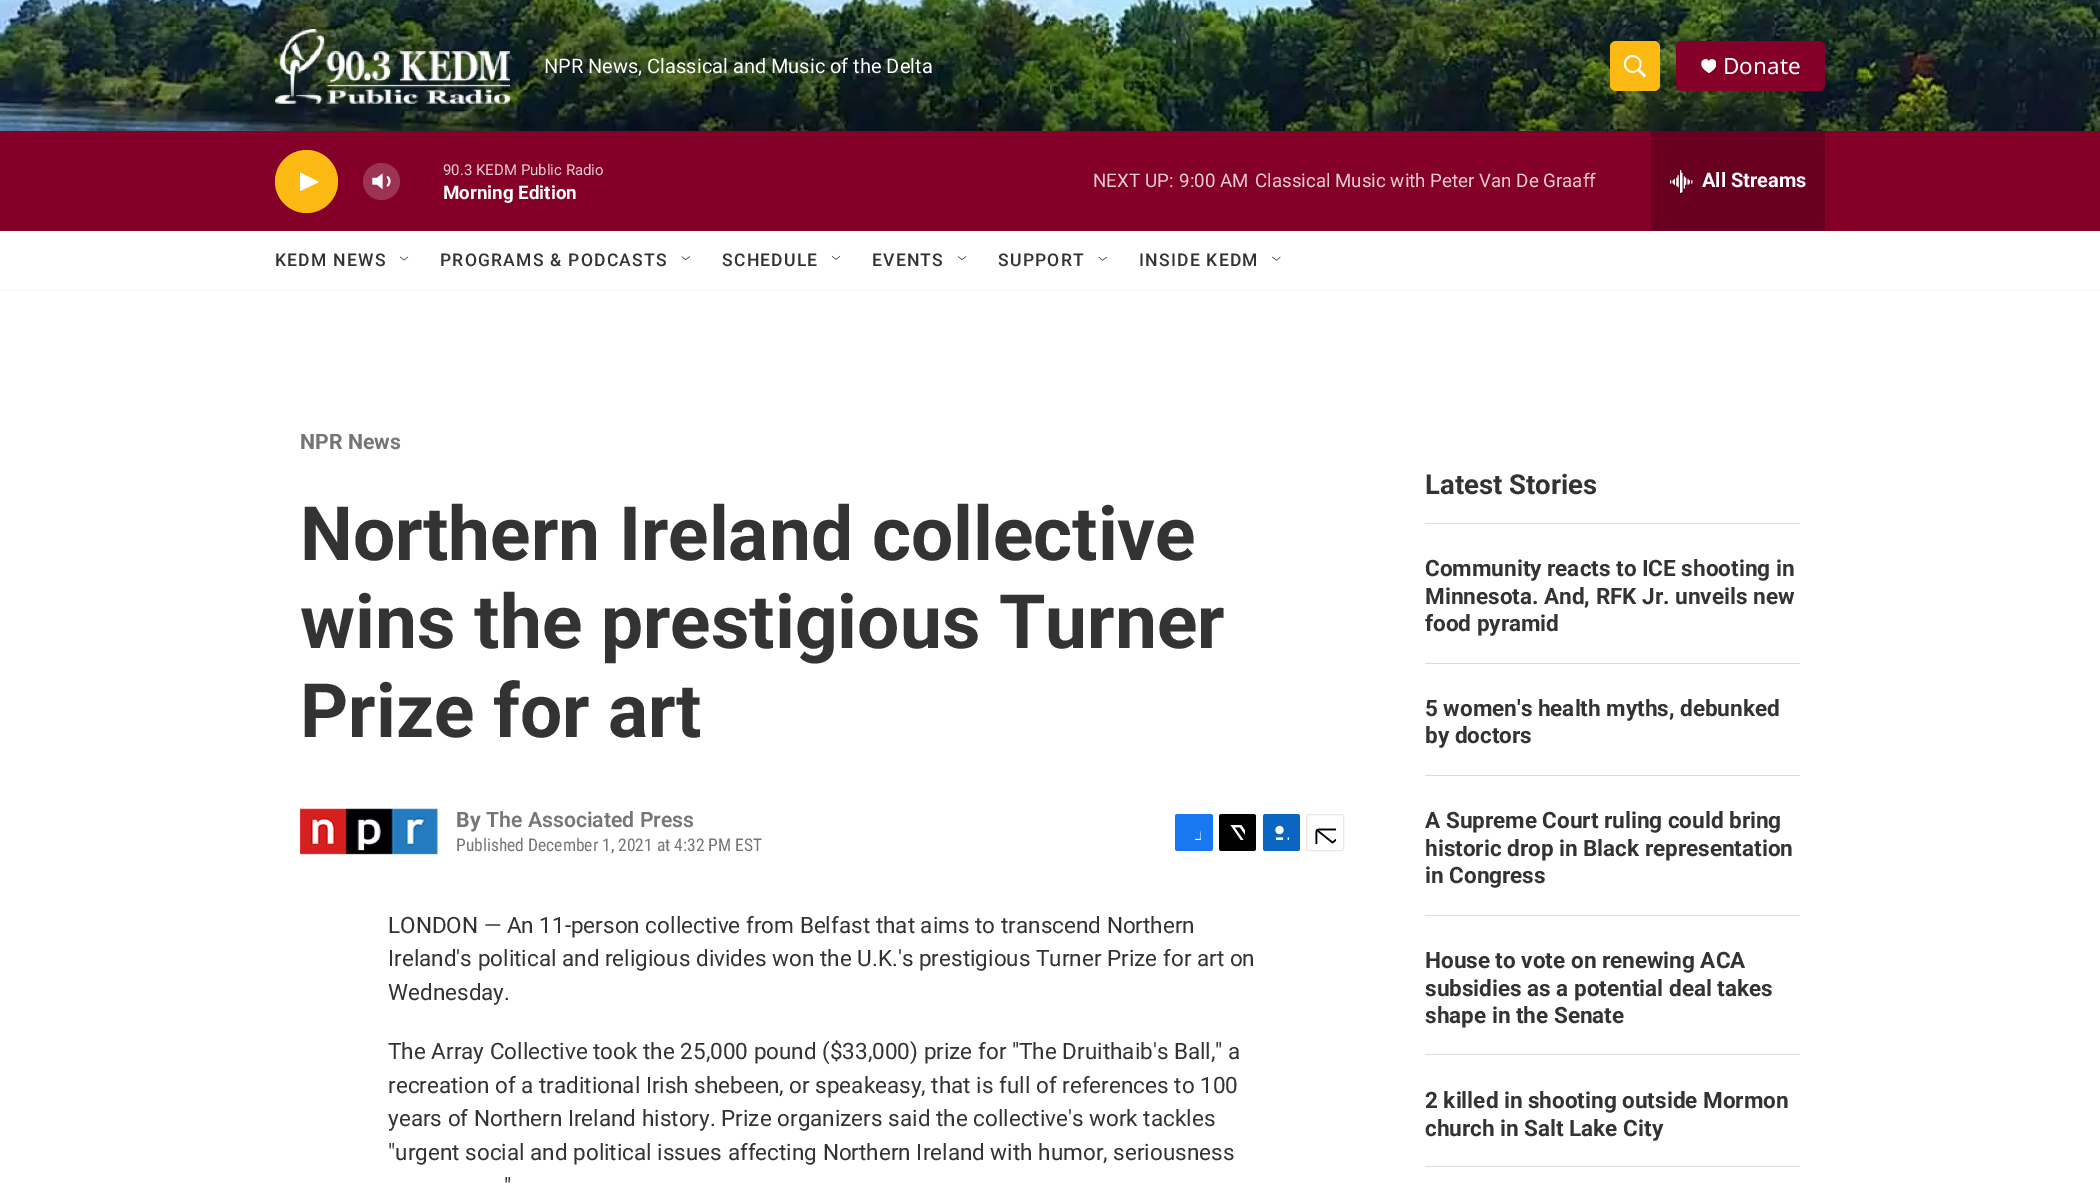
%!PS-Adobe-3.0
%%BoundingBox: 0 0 2100 1184
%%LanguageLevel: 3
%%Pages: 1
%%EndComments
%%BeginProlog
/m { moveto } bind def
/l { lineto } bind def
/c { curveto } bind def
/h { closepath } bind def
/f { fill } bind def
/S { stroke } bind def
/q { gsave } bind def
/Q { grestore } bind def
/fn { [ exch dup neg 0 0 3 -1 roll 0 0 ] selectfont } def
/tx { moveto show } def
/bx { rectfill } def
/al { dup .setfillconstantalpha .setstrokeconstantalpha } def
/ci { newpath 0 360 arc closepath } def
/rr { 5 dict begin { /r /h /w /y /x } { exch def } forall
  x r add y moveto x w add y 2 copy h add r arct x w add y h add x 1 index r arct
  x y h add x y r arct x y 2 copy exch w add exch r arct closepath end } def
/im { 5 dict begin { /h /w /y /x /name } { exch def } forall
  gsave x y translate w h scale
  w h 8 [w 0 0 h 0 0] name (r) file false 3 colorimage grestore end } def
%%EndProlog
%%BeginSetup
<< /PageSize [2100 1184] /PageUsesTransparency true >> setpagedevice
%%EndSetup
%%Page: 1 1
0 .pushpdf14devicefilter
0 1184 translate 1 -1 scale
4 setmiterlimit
1 setgray
0 0 2100 1184 bx
0.961 setgray
0 290 2100 1 bx
(image0.raw) 0 0 2100 131 im
(image1.raw) 275 28 235 76 im
/Roboto-Regular 20 fn
1 setgray
(NPR News, Classical and Music of the Delta) 544 73 tx
0.992 0.725 0.075 setrgbcolor
1610 41 50 50 6 rr f
(image2.raw) 1624 55 22 23 im
0.518 0 0.161 setrgbcolor
1676 41 149 50 6 rr f
q
1701 59 15 15 rectclip
1 setgray
1709 61.5 m 1706.5 55 1693 63.5 1709 73 c 1724.5 63.5 1711 55 1709 61.5 c h f
Q
/NotoSans-Regular 22.5 fn
1 setgray
(Donate) 1723 74 tx
0.518 0 0.161 setrgbcolor
0 131 2100 100 bx
0.992 0.725 0.075 setrgbcolor
306.5 181.5 31.5 ci f
1 setgray
300 172.5 m 319 182 l 300 191 l h f
(image3.raw) 372 173 19 17 im
0.2 al
381.5 181.5 18.5 ci f
/Roboto-Regular 15 fn
1 al
0.902 0.8 0.831 setrgbcolor
(90.3 KEDM Public Radio) 443 175 tx
/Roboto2-Bold 18.75 fn
1 setgray
(Morning Edition) 443 199 tx
/Roboto-Regular 18.75 fn
0.902 0.8 0.831 setrgbcolor
(NEXT UP:) 1093 187 tx
(9:00 AM) 1179 187 tx
(Classical Music with Peter Van De Graaff) 1255 187 tx
0.416 0 0.129 setrgbcolor
1651 131 174 100 bx
(image4.raw) 1670 170 23 23 im
/Roboto2-Bold 20 fn
1 setgray
(All Streams) 1702 187 tx
/Roboto-Medium 17.5 fn
0.2 setgray
275 266 m 1.25 0 (KEDM NEWS) ashow
(image5.raw) 400 256 9 5 im
440 266 m 1.25 0 (PROGRAMS & PODCASTS) ashow
(image6.raw) 681 256 9 4 im
722 266 m 1.25 0 (SCHEDULE) ashow
(image7.raw) 831 255 10 5 im
872 266 m 1.25 0 (EVENTS) ashow
(image8.raw) 957 256 10 4 im
998 266 m 1.25 0 (SUPPORT) ashow
(image9.raw) 1098 256 9 5 im
1139 266 m 1.25 0 (INSIDE KEDM) ashow
(image10.raw) 1272 256 9 5 im
/Roboto-Bold 21.25 fn
0.463 setgray
(NPR News) 300 449 tx
/Roboto-Bold 75 fn
0.2 setgray
(Northern Ireland collective) 300 560 tx
(wins the prestigious Turner) 300 648 tx
(Prize for art) 300 737 tx
(image11.raw) 300 808 138 47 im
/Roboto-Bold 21.25 fn
0.463 setgray
(By) 456 827 tx
/Roboto-SemiBold 21.25 fn
(The Associated Press) 486 827 tx
/RobotoCondensed-Regular 17.5 fn
(Published December 1, 2021 at 4:32 PM EST) 456 851 tx
0.09 0.471 0.949 setrgbcolor
1175 814 38 37 2.5 rr f
(image12.raw) 1195 830 6 10 im
0 setgray
1219 814 37 37 2.5 rr f
(image13.raw) 1230 825 15 15 im
0.039 0.4 0.757 setrgbcolor
1263 814 37 37 2.5 rr f
(image14.raw) 1275 825 14 15 im
0.902 setgray
1306.5 814.5 37 36 2 rr S
(image15.raw) 1315 828 21 16 im
/Roboto-Regular 22.5 fn
0.2 setgray
(LONDON — An 11-person collective from Belfast that aims to transcend Northern) 388 933 tx
(Ireland's political and religious divides won the U.K.'s prestigious Turner Prize for art on) 388 966 tx
(Wednesday.) 388 1000 tx
(The Array Collective took the 25,000 pound \($33,000\) prize for "The Druithaib's Ball," a) 388 1059 tx
(recreation of a traditional Irish shebeen, or speakeasy, that is full of references to 100) 388 1093 tx
(years of Northern Ireland history. Prize organizers said the collective's work tackles) 388 1126 tx
("urgent social and political issues affecting Northern Ireland with humor, seriousness) 388 1160 tx
(") 504 1194 tx
0.863 setgray
1425 523 375 1 bx
/Roboto-Bold 27.5 fn
0.2 setgray
(Latest Stories) 1425 494 tx
0.863 setgray
1425 663 375 1 bx
/Roboto-Bold 22.5 fn
0.2 setgray
(Community reacts to ICE shooting in) 1425 576 tx
(Minnesota. And, RFK Jr. unveils new) 1425 604 tx
(food pyramid) 1425 631 tx
0.863 setgray
1425 775 375 1 bx
0.2 setgray
(5 women's health myths, debunked) 1425 716 tx
(by doctors) 1425 743 tx
0.863 setgray
1425 915 375 1 bx
0.2 setgray
(A Supreme Court ruling could bring) 1425 828 tx
(historic drop in Black representation) 1425 856 tx
(in Congress) 1425 883 tx
0.863 setgray
1425 1054 375 1 bx
0.2 setgray
(House to vote on renewing ACA) 1425 968 tx
(subsidies as a potential deal takes) 1425 996 tx
(shape in the Senate) 1425 1023 tx
0.863 setgray
1425 1166 375 1 bx
0.2 setgray
(2 killed in shooting outside Mormon) 1425 1108 tx
(church in Salt Lake City) 1425 1136 tx
.poppdf14devicefilter showpage
%%EOF
